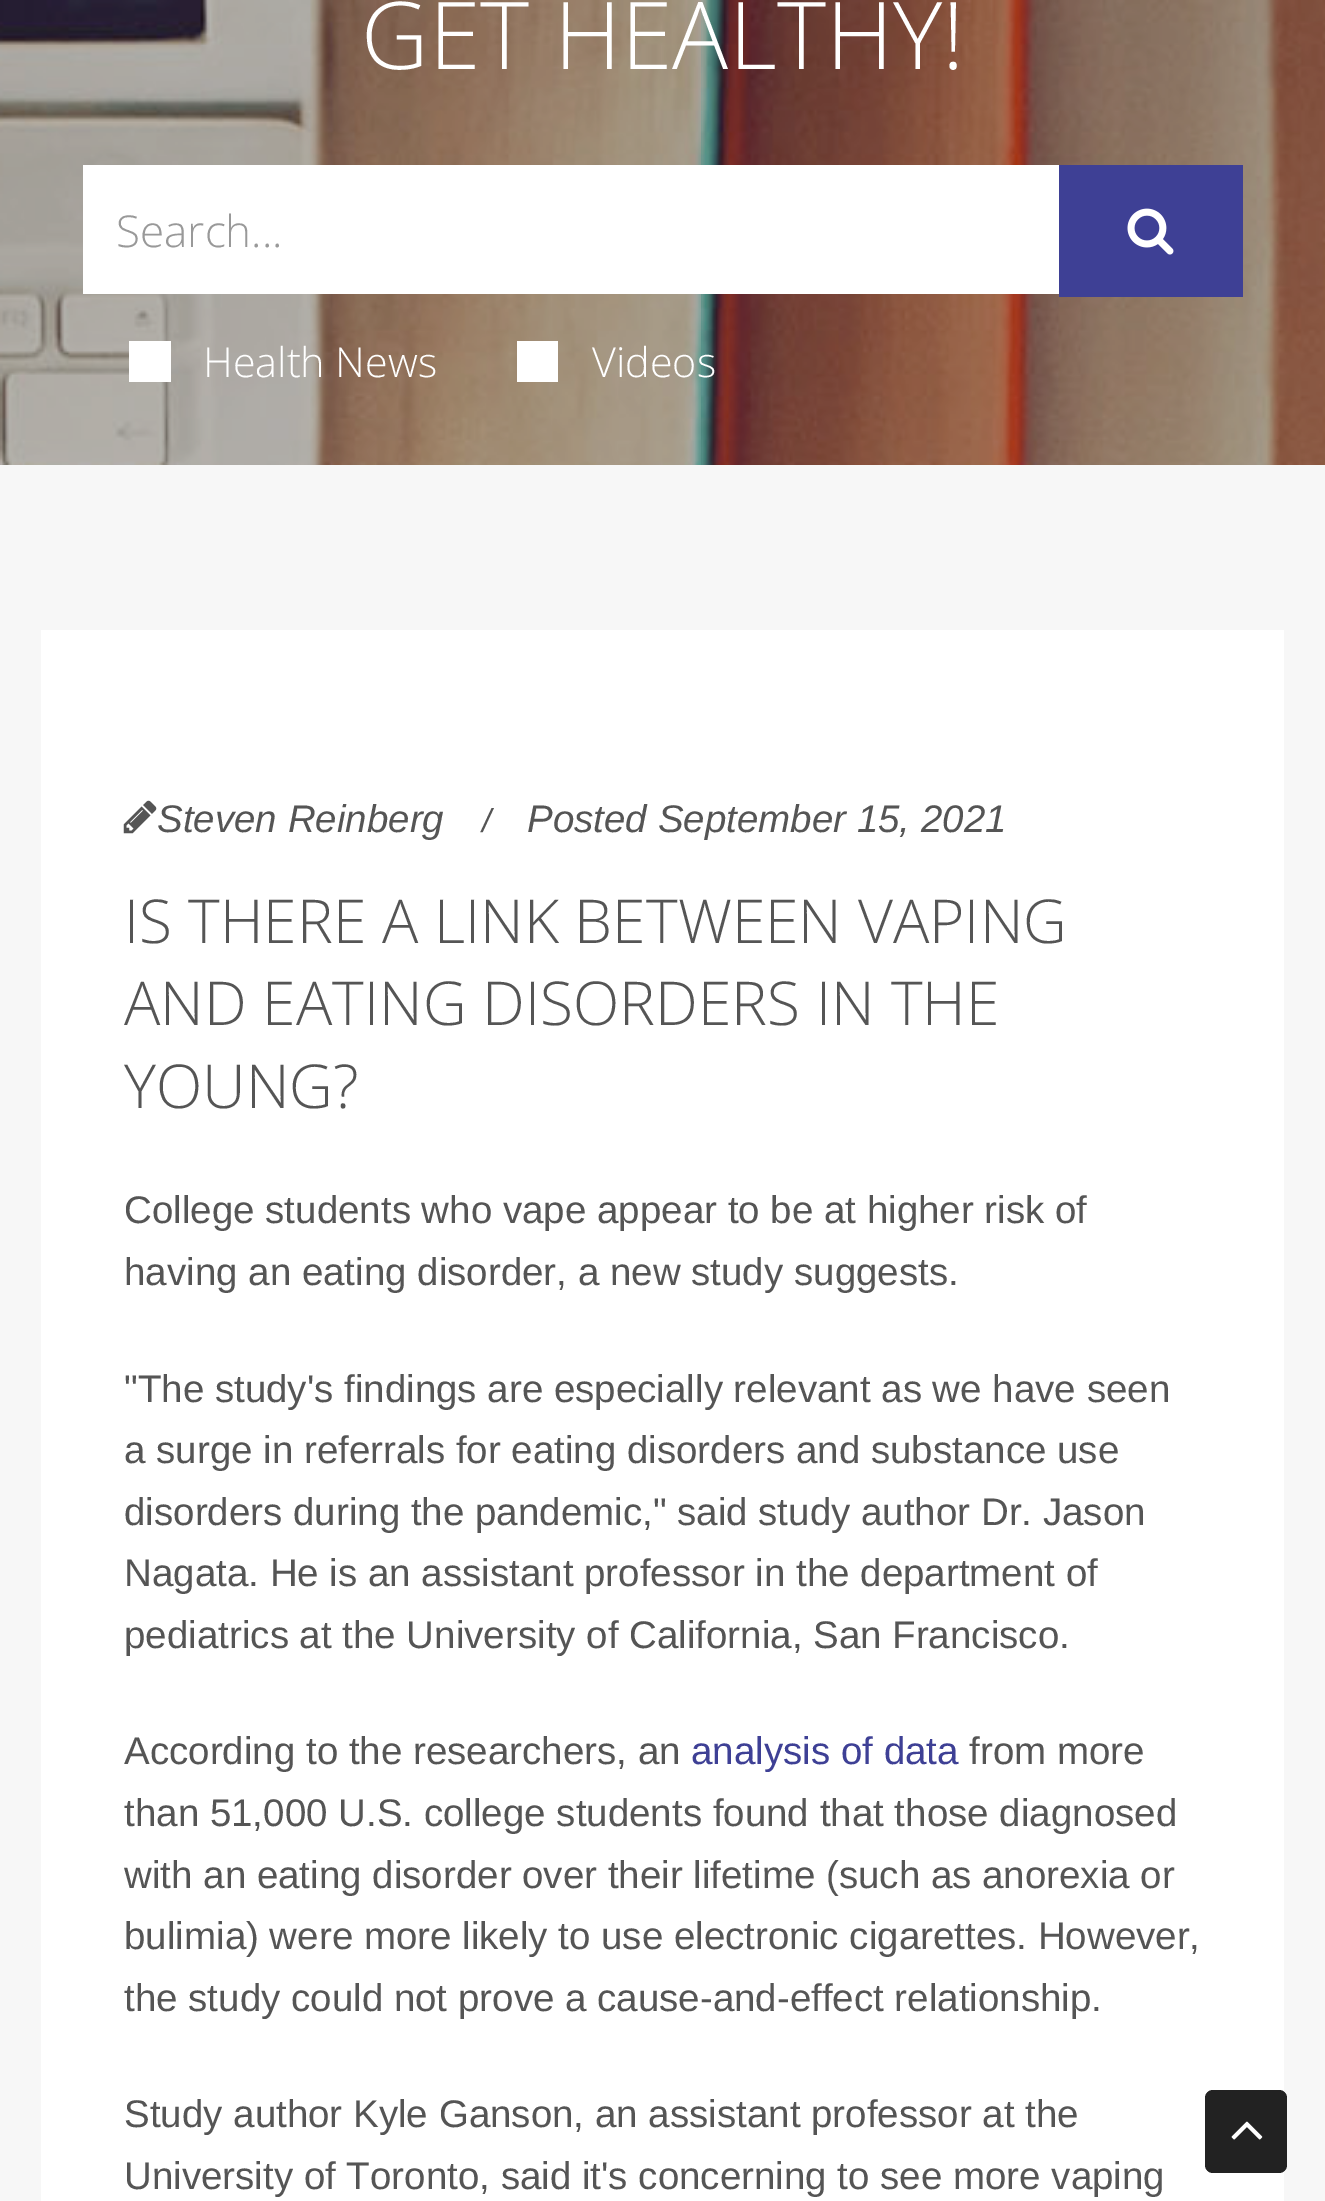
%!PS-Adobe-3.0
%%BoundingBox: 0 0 1325 2201
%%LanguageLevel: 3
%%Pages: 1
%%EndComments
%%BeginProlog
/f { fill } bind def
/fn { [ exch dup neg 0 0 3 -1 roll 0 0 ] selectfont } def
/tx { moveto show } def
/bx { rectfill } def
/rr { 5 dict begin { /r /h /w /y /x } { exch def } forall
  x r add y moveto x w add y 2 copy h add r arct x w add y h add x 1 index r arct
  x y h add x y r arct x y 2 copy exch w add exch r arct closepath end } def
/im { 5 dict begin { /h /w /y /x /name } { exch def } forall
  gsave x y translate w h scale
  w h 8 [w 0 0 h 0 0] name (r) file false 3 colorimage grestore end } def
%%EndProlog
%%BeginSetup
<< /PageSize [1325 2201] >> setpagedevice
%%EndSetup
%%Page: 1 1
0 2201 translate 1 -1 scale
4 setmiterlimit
0.969 setgray
0 0 1325 2201 bx
(image0.raw) 0 0 1325 465 im
/OpenSans-Light 93.5 fn
1 setgray
(GET HEALTHY!) 361 69 tx
83 165 976 129 bx
/OpenSans-Light 44 fn
0.6 setgray
(Search...) 116 247 tx
0.243 0.251 0.584 setrgbcolor
1059 165 184 132 bx
(image1.raw) 1127 208 47 47 im
1 setgray
129 341 42 41 bx
/OpenSans-Light 41.25 fn
(Health News) 203 377 tx
517 341 41 41 bx
(Videos) 592 377 tx
41 630 1243 1571 bx
(image2.raw) 123 800 34 34 im
/LiberationSans-Italic 38.5 fn
0.333 setgray
(Steven Reinberg) 157 832 tx
/LiberationSans-Italic 33 fn
(/) 482 832 tx
/LiberationSans-Italic 38.5 fn
(Posted September 15, 2021) 527 832 tx
/OpenSans-Light 60.5 fn
(IS THERE A LINK BETWEEN VAPING) 124 943 tx
(AND EATING DISORDERS IN THE) 124 1025 tx
(YOUNG?) 124 1108 tx
/LiberationSans-Regular 38.5 fn
(College students who vape appear to be at higher risk of) 124 1223 tx
(having an eating disorder, a new study suggests.) 124 1285 tx
("The study's findings are especially relevant as we have seen) 124 1402 tx
(a surge in referrals for eating disorders and substance use) 124 1463 tx
(disorders during the pandemic," said study author Dr. Jason) 124 1525 tx
(Nagata. He is an assistant professor in the department of) 124 1586 tx
(pediatrics at the University of California, San Francisco.) 124 1648 tx
(According to the researchers, an) 124 1764 tx
0.243 0.251 0.584 setrgbcolor
(analysis of data) 691 1764 tx
0.333 setgray
(from more) 969 1764 tx
(than 51,000 U.S. college students found that those diagnosed) 124 1826 tx
(with an eating disorder over their lifetime \(such as anorexia or) 124 1888 tx
(bulimia\) were more likely to use electronic cigarettes. However,) 124 1949 tx
(the study could not prove a cause-and-effect relationship.) 124 2011 tx
(Study author Kyle Ganson, an assistant professor at the) 124 2127 tx
(University of Toronto, said it's concerning to see more vaping) 124 2189 tx
0.133 setgray
1205 2090 82 83 8 rr f
(image3.raw) 1231 2121 32 19 im
showpage
%%EOF
